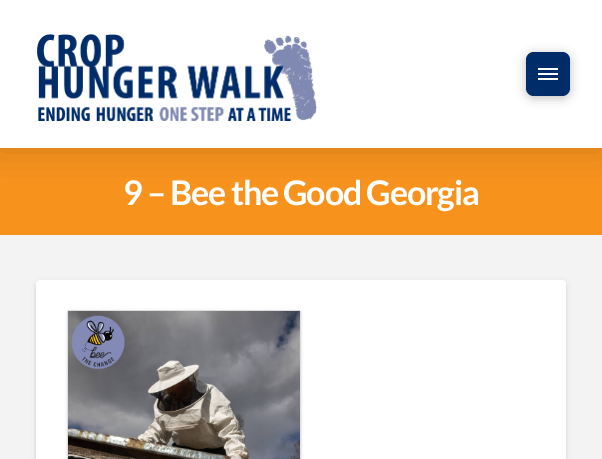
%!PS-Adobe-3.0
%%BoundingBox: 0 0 602 459
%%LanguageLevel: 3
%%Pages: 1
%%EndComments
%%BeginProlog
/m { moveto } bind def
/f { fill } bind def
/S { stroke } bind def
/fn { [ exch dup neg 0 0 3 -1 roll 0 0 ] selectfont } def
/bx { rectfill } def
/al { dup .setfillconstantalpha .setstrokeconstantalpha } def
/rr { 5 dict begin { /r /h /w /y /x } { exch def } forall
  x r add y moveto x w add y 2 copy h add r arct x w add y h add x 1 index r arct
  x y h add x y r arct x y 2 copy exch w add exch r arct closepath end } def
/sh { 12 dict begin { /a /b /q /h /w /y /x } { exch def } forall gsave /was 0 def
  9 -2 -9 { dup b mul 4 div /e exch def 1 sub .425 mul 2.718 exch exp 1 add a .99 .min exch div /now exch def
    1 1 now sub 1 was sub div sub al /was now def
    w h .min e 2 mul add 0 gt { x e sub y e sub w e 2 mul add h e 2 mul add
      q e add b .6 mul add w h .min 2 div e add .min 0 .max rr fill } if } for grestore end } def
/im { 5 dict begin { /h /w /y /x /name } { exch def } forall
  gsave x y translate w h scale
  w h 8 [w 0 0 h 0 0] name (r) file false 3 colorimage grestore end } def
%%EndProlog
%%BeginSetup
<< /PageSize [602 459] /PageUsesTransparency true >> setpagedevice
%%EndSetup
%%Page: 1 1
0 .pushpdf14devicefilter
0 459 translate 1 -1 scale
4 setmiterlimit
0.953 setgray
0 0 602 459 bx
0.969 0.576 0.114 setrgbcolor
0 148 602 87 bx
0 setgray
0 2 602 148 0 16 0.15 sh
1 setgray
0 0 602 148 bx
(image0.raw) 37 34 280 87 im
0 setgray
526 54 44 44 8 5 0.25 sh
0 0.176 0.416 setrgbcolor
526 52 44 44 8 rr f
1 setgray
538 68 20 2 bx
538 73 20 2 bx
538 78 20 2 bx
/Lato-Bold 34 fn
123 205 m -1.2 0 (9 – Bee the Good Georgia) ashow
0 setgray
36 282 530 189 4 2.5 0.14 sh
1 setgray
36 280 530 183 4 rr f
0 setgray
67 311 234 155 2 1.5 0.1 sh
0.867 setgray
67.5 310.5 233 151 1.5 rr S
(image1.raw) 68 311 232 148 im
.poppdf14devicefilter showpage
%%EOF
